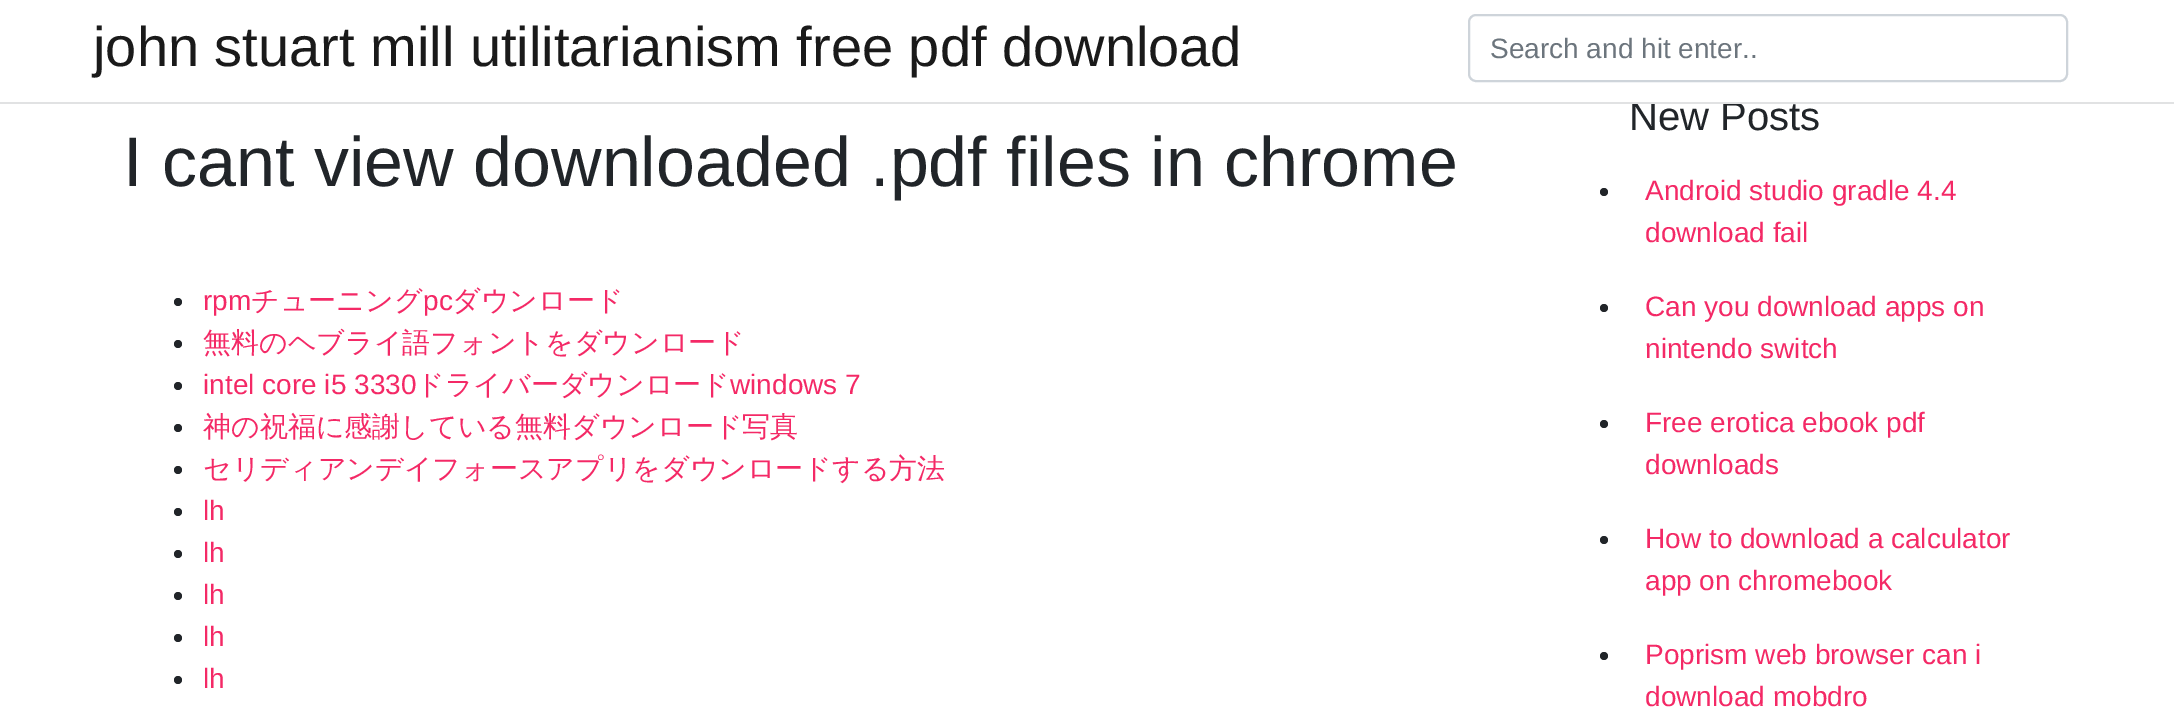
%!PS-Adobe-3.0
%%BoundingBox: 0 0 2174 721
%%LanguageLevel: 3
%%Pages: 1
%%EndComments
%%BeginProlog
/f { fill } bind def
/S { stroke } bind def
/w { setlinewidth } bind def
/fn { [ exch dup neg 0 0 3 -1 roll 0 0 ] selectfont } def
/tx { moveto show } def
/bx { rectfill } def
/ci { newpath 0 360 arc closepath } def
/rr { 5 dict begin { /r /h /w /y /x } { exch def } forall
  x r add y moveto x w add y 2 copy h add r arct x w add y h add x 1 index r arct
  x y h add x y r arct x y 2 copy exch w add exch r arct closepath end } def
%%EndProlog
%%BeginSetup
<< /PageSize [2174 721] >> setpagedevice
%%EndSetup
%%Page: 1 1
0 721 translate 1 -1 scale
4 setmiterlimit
1 setgray
0 0 2174 721 bx
/LiberationSans-Regular 40 fn
0.129 0.145 0.161 setrgbcolor
(New Posts) 1629 130 tx
0.882 0.886 0.89 setrgbcolor
0 102 2174 2 bx
/LiberationSans-Regular 56 fn
0.102 setgray
(john stuart mill utilitarianism free pdf download) 93 66 tx
0.808 0.831 0.855 setrgbcolor
2 w
1469 15 598 66 7 rr S
/LiberationSans-Regular 28 fn
0.424 0.459 0.49 setrgbcolor
(Search and hit enter..) 1490 58 tx
/LiberationSans-Regular 70 fn
0.129 0.145 0.161 setrgbcolor
(I cant view downloaded .pdf files in chrome) 123 186 tx
178 302 4 ci f
/LiberationSans-Regular 28 fn
0.957 0.161 0.4 setrgbcolor
(rpm) 203 310 tx
/WenQuanYiZenHei-Medium 28 fn
(チューニング) 251 310 tx
/LiberationSans-Regular 28 fn
(pc) 423 310 tx
/WenQuanYiZenHei-Medium 28 fn
(ダウンロード) 452 310 tx
0.129 0.145 0.161 setrgbcolor
178 344 4 ci f
0.957 0.161 0.4 setrgbcolor
(無料のヘブライ語フォントをダウンロード) 203 352 tx
0.129 0.145 0.161 setrgbcolor
178 386 4 ci f
/LiberationSans-Regular 28 fn
0.957 0.161 0.4 setrgbcolor
(intel core i5 3330) 203 394 tx
/WenQuanYiZenHei-Medium 28 fn
(ドライバーダウンロード) 416 394 tx
/LiberationSans-Regular 28 fn
(windows 7) 730 394 tx
0.129 0.145 0.161 setrgbcolor
178 428 4 ci f
/WenQuanYiZenHei-Medium 28 fn
0.957 0.161 0.4 setrgbcolor
(神の祝福に感謝している無料ダウンロード写真) 203 436 tx
0.129 0.145 0.161 setrgbcolor
178 470 4 ci f
0.957 0.161 0.4 setrgbcolor
(セリディアンデイフォースアプリをダウンロードする方法) 203 478 tx
0.129 0.145 0.161 setrgbcolor
178 512 4 ci f
/LiberationSans-Regular 28 fn
0.957 0.161 0.4 setrgbcolor
(lh) 203 520 tx
0.129 0.145 0.161 setrgbcolor
178 554 4 ci f
0.957 0.161 0.4 setrgbcolor
(lh) 203 562 tx
0.129 0.145 0.161 setrgbcolor
178 596 4 ci f
0.957 0.161 0.4 setrgbcolor
(lh) 203 604 tx
0.129 0.145 0.161 setrgbcolor
178 638 4 ci f
0.957 0.161 0.4 setrgbcolor
(lh) 203 646 tx
0.129 0.145 0.161 setrgbcolor
178 680 4 ci f
0.957 0.161 0.4 setrgbcolor
(lh) 203 688 tx
0.129 0.145 0.161 setrgbcolor
1604 192 4 ci f
0.957 0.161 0.4 setrgbcolor
(Android studio gradle 4.4) 1645 200 tx
(download fail) 1645 242 tx
0.129 0.145 0.161 setrgbcolor
1604 308 4 ci f
0.957 0.161 0.4 setrgbcolor
(Can you download apps on) 1645 316 tx
(nintendo switch) 1645 358 tx
0.129 0.145 0.161 setrgbcolor
1604 424 4 ci f
0.957 0.161 0.4 setrgbcolor
(Free erotica ebook pdf) 1645 432 tx
(downloads) 1645 474 tx
0.129 0.145 0.161 setrgbcolor
1604 540 4 ci f
0.957 0.161 0.4 setrgbcolor
(How to download a calculator) 1645 548 tx
(app on chromebook) 1645 590 tx
0.129 0.145 0.161 setrgbcolor
1604 656 4 ci f
0.957 0.161 0.4 setrgbcolor
(Poprism web browser can i) 1645 664 tx
(download mobdro) 1645 706 tx
showpage
%%EOF
